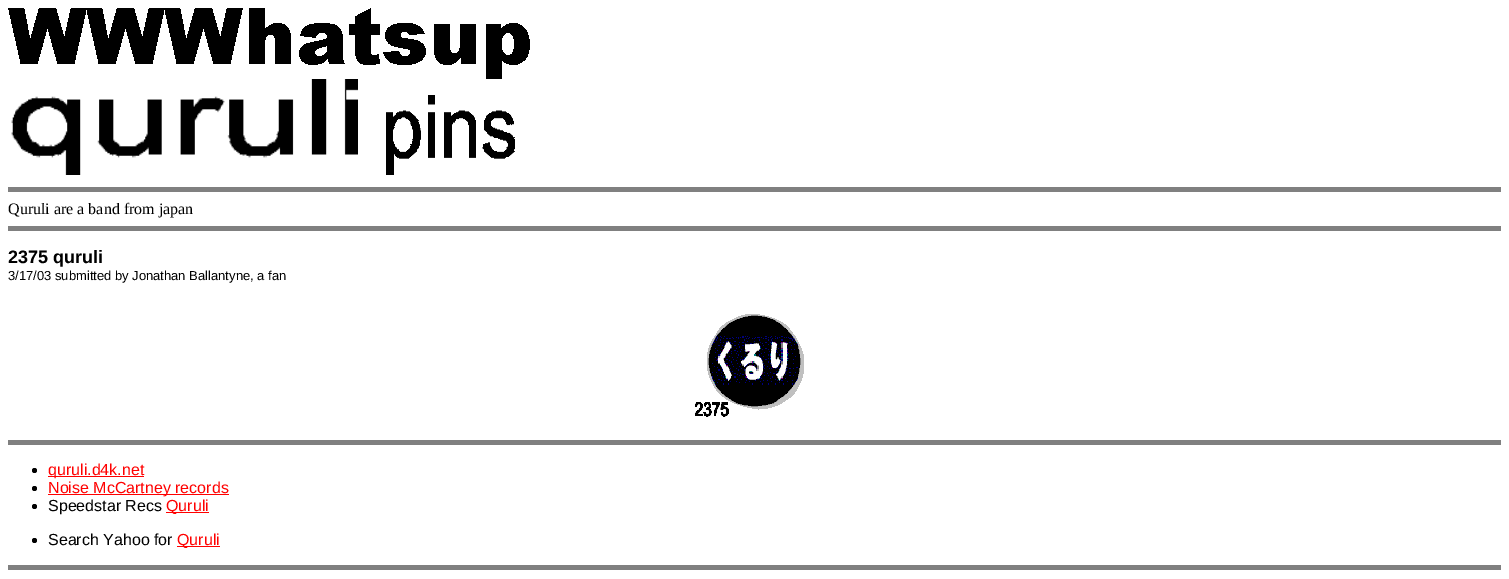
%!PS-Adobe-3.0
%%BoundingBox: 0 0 1509 579
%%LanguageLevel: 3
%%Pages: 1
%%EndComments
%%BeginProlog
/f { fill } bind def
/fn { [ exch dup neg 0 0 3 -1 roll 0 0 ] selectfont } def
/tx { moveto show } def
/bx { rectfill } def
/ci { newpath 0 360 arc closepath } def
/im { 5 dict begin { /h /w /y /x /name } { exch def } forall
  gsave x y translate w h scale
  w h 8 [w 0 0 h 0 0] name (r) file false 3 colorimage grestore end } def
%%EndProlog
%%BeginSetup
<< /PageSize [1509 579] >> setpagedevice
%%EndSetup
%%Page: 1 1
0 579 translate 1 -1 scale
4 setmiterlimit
1 setgray
0 0 1509 579 bx
(image0.raw) 8 8 522 71 im
(image1.raw) 11 79 347 96 im
(image2.raw) 386 95 129 80 im
0.502 setgray
8 187 1493 5 bx
/LiberationSerif-Regular 16 fn
0 setgray
(Quruli are a band from japan) 8 214 tx
0.502 setgray
8 226 1493 5 bx
/LiberationSans-Bold 18 fn
0 setgray
(2375 quruli) 8 263 tx
/LiberationSans-Regular 13 fn
(3/17/03 submitted by Jonathan Ballantyne, a fan) 8 280 tx
(image3.raw) 695 314 109 103 im
0.502 setgray
8 440 1493 5 bx
0 setgray
34.5 470.5 2.5 ci f
1 0 0 setrgbcolor
48 476 96 1 bx
/LiberationSans-Regular 16 fn
(quruli.d4k.net) 48 475 tx
0 setgray
34.5 488.5 2.5 ci f
1 0 0 setrgbcolor
48 494 181 1 bx
(Noise McCartney records) 48 493 tx
0 setgray
34.5 506.5 2.5 ci f
(Speedstar Recs) 48 511 tx
1 0 0 setrgbcolor
166 512 43 1 bx
(Quruli) 166 511 tx
0 setgray
34.5 540.5 2.5 ci f
(Search Yahoo for) 48 545 tx
1 0 0 setrgbcolor
177 546 43 1 bx
(Quruli) 177 545 tx
0.502 setgray
8 565 1493 5 bx
showpage
%%EOF
